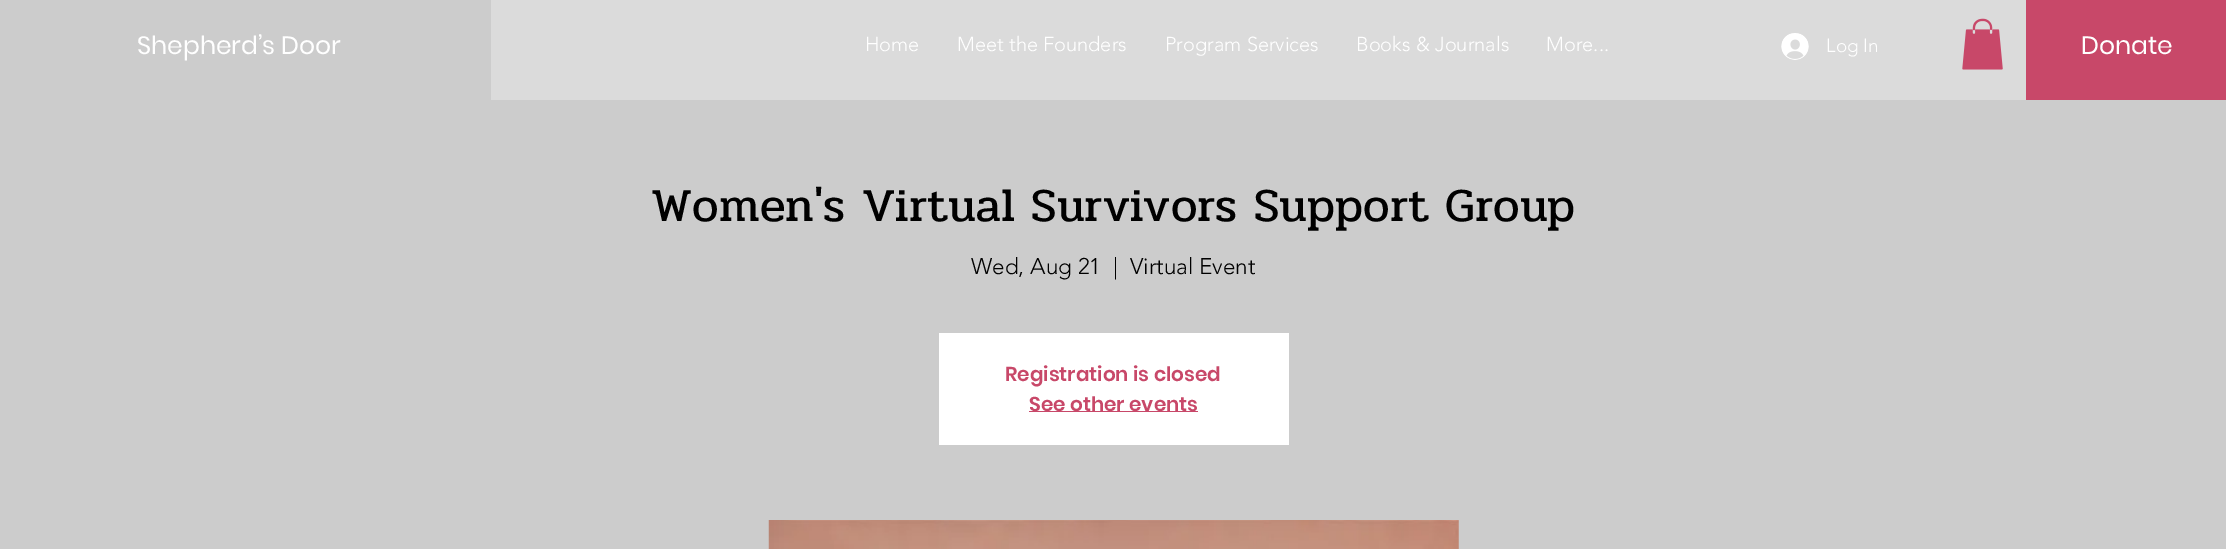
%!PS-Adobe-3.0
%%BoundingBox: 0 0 2226 549
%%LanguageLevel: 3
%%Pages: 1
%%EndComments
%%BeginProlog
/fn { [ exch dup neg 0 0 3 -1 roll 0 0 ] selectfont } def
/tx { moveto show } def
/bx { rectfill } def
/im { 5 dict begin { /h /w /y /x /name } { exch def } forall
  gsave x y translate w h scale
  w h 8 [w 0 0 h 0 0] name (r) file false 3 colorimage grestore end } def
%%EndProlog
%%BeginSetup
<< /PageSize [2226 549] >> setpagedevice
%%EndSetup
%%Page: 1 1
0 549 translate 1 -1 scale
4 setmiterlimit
0.8 setgray
0 0 2226 549 bx
/Poppins-Regular 25 fn
1 setgray
(Shepherd’s Door) 137 54 tx
0.859 setgray
491 0 1535 100 bx
/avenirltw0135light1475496-Light 20 fn
1 setgray
(Home) 865 51 tx
(Meet the Founders) 957 51 tx
(Program Services) 1165 51 tx
(Books & Journals) 1356 51 tx
(More...) 1546 51 tx
(image0.raw) 1781 33 28 27 im
/avenirltw0135light1475496-Light 19 fn
(Log In) 1826 52 tx
(image1.raw) 1962 18 41 52 im
0.784 0.282 0.412 setrgbcolor
2026 0 200 100 bx
/Poppins-Regular 25 fn
1 setgray
(Donate) 2081 54 tx
/Pridi-Regular 47.5 fn
0 setgray
(Women's Virtual Survivors Support Group) 651 221 tx
/avenirltw0135light1475496-Light 22.5 fn
(Wed, Aug 21) 971 274 tx
(|) 1113 274 tx
(Virtual Event) 1130 274 tx
1 setgray
939 333 350 112 bx
/Poppins-SemiBold 20 fn
0.784 0.282 0.412 setrgbcolor
(Registration is closed) 1005 381 tx
1029 411 169 1 bx
(See other events) 1029 411 tx
(image2.raw) 768 520 691 29 im
showpage
%%EOF
